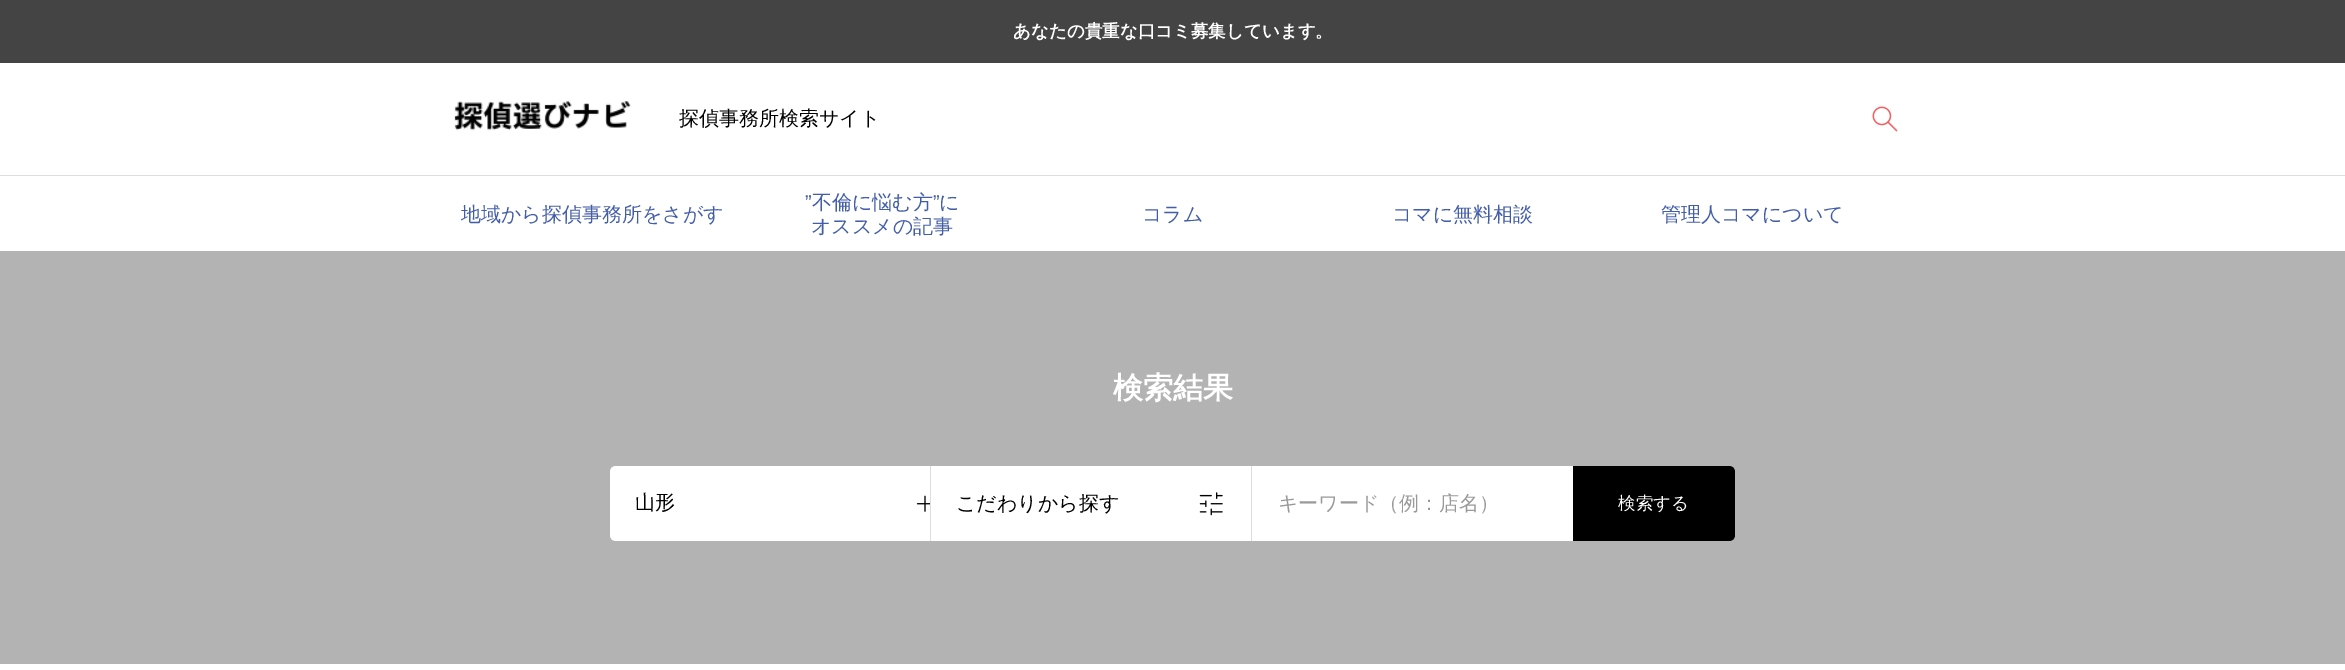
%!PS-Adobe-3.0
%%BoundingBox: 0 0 2345 670
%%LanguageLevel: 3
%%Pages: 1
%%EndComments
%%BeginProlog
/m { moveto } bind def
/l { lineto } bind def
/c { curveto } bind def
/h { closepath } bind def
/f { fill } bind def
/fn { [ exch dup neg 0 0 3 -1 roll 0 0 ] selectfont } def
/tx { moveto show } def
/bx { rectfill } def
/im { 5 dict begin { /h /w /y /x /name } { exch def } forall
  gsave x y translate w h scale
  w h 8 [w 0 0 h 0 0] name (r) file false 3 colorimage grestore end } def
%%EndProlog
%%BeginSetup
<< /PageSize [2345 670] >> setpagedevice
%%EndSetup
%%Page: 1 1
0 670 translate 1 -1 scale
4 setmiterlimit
1 setgray
0 0 2345 670 bx
0.267 setgray
0 0 2345 63 bx
/WenQuanYiZenHei-Bold 17.5 fn
1 setgray
(あなたの貴重な口コミ募集しています。) 1013 37 tx
(image0.raw) 454 101 177 30 im
/WenQuanYiZenHei-Medium 20 fn
0 setgray
(探偵事務所検索サイト) 679 125 tx
(image1.raw) 1872 106 26 26 im
0.867 setgray
0 175 2345 1 bx
0.263 0.369 0.663 setrgbcolor
(地域から探偵事務所をさがす) 461 221 tx
/LiberationSans-Regular 20 fn
(”) 805 209 tx
/WenQuanYiZenHei-Medium 20 fn
(不倫に悩む方) 812 209 tx
/LiberationSans-Regular 20 fn
(”) 933 209 tx
/WenQuanYiZenHei-Medium 20 fn
(に) 939 209 tx
(オススメの記事) 811 233 tx
(コラム) 1142 221 tx
(コマに無料相談) 1392 221 tx
(管理人コマについて) 1661 221 tx
0.702 setgray
0 251 2345 413 bx
/WenQuanYiZenHei-Bold 30 fn
1 setgray
(検索結果) 1113 398 tx
616 466 m 930 466 l 930 541 l 616 541 l 612.5 541 610 538.5 610 535 c 610 472 l 610 468.5 612.5 466 616 466 c h f
/WenQuanYiZenHei-Medium 20 fn
0 setgray
(山形) 635 509 tx
(image2.raw) 916 495 14 17 im
1 setgray
931 466 320 75 bx
0.867 setgray
930 466 1 75 bx
0 setgray
(こだわりから探す) 956 510 tx
(image3.raw) 1199 492 24 24 im
1 setgray
1252 466 321 75 bx
0.867 setgray
1251 466 1 75 bx
0.6 setgray
(キーワード（例：店名）) 1278 510 tx
0 setgray
1573 466 m 1729 466 l 1732.5 466 1735 468.5 1735 472 c 1735 535 l 1735 538.5 1732.5 541 1729 541 c 1573 541 l h f
/WenQuanYiZenHei-Medium 17.5 fn
1 setgray
(検索する) 1618 509 tx
showpage
%%EOF
